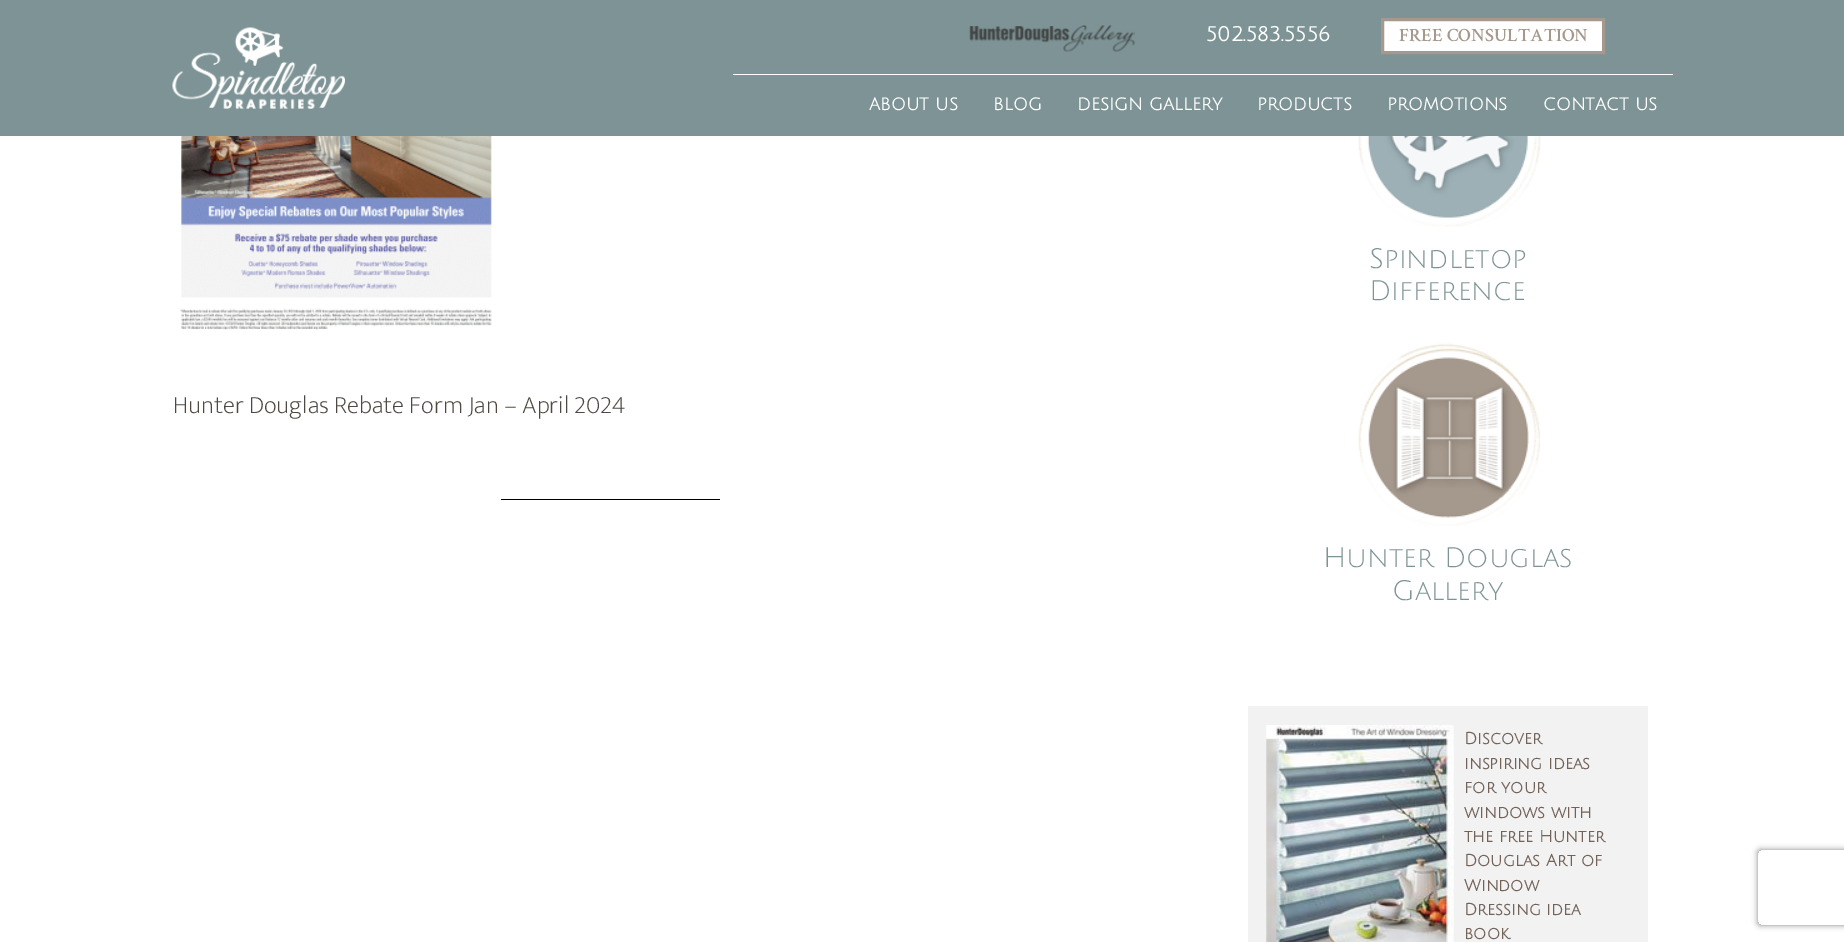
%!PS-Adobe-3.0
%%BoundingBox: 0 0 1844 942
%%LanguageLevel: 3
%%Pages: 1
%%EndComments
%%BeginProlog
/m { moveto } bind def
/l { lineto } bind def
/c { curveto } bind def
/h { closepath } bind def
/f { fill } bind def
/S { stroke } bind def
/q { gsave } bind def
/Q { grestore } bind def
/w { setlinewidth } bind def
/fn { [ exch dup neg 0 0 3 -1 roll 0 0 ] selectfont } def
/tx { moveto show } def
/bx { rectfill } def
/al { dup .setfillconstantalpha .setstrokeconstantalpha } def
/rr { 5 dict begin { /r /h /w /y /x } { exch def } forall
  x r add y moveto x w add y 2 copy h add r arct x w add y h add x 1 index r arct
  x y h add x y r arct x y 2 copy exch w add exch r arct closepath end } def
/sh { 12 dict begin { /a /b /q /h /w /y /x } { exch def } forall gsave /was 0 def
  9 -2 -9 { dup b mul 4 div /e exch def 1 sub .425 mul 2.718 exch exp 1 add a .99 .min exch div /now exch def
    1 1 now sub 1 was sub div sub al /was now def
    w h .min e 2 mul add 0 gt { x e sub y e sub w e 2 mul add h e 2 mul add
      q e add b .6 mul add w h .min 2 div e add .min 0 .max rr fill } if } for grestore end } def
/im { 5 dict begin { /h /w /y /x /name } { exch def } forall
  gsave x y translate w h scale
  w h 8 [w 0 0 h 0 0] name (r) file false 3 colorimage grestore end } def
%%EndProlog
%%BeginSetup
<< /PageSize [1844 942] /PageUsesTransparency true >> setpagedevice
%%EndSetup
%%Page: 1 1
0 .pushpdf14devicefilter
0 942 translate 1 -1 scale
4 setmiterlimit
1 setgray
0 0 1844 942 bx
0.49 0.576 0.584 setrgbcolor
0 0 1844 136 bx
(image0.raw) 172 27 173 82 im
1 setgray
733 74 940 1 bx
(image1.raw) 969 25 166 27 im
/JuliusSansOne-Bold 20 fn
1206 41 m 0.25 0 (502.583.5556) ashow
1382.5 19.5 m 1603.5 19.5 l 1603.5 52.5 l 1382.5 52.5 l h q f Q
0.647 0.596 0.553 setrgbcolor
3 w
S
/CrimsonText-SemiBold 18.75 fn
(FREE CONSULTATION) 1399 41 tx
/JuliusSansOne-Bold 16.9 fn
1 setgray
(ABOUT US) 869 110 tx
(BLOG) 993 110 tx
(DESIGN GALLERY) 1077 110 tx
(PRODUCTS) 1257 110 tx
(PROMOTIONS) 1387 110 tx
(CONTACT US) 1543 110 tx
(image2.raw) 180 136 312 194 im
/EkMukta-ExtraLight 25 fn
0.306 0.282 0.255 setrgbcolor
(Hunter Douglas Rebate Form Jan – April 2024) 173 413 tx
0 setgray
501 499 219 1 bx
(image3.raw) 1358 136 183 91 im
/JuliusSansOne-Regular 27.5 fn
0.49 0.576 0.584 setrgbcolor
(Spindletop) 1369 268 tx
(Difference) 1369 300 tx
(image4.raw) 1358 343 183 183 im
(Hunter Douglas) 1323 567 tx
(Gallery) 1392 600 tx
0.949 setgray
1248 706 400 236 bx
(image5.raw) 1266 725 188 217 im
/JuliusSansOne-Bold 16.25 fn
0.447 0.384 0.345 setrgbcolor
(Discover) 1464 744 tx
(inspiring ideas) 1464 769 tx
(for your) 1464 793 tx
(windows with) 1464 818 tx
(the free Hunter) 1464 842 tx
(Douglas Art of) 1464 866 tx
(Window) 1464 891 tx
(Dressing idea) 1464 915 tx
(book.) 1464 939 tx
q
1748 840 m 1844 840 l 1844 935 l 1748 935 l h 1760.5 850 m 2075.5 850 l 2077 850 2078 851 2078 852.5 c 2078 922.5 l 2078 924 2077 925 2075.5 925 c 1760.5 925 l 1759 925 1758 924 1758 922.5 c 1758 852.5 l 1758 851 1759 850 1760.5 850 c h eoclip newpath
0.502 setgray
1758 850 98 75 2.5 3 1 sh
Q
.poppdf14devicefilter showpage
%%EOF
